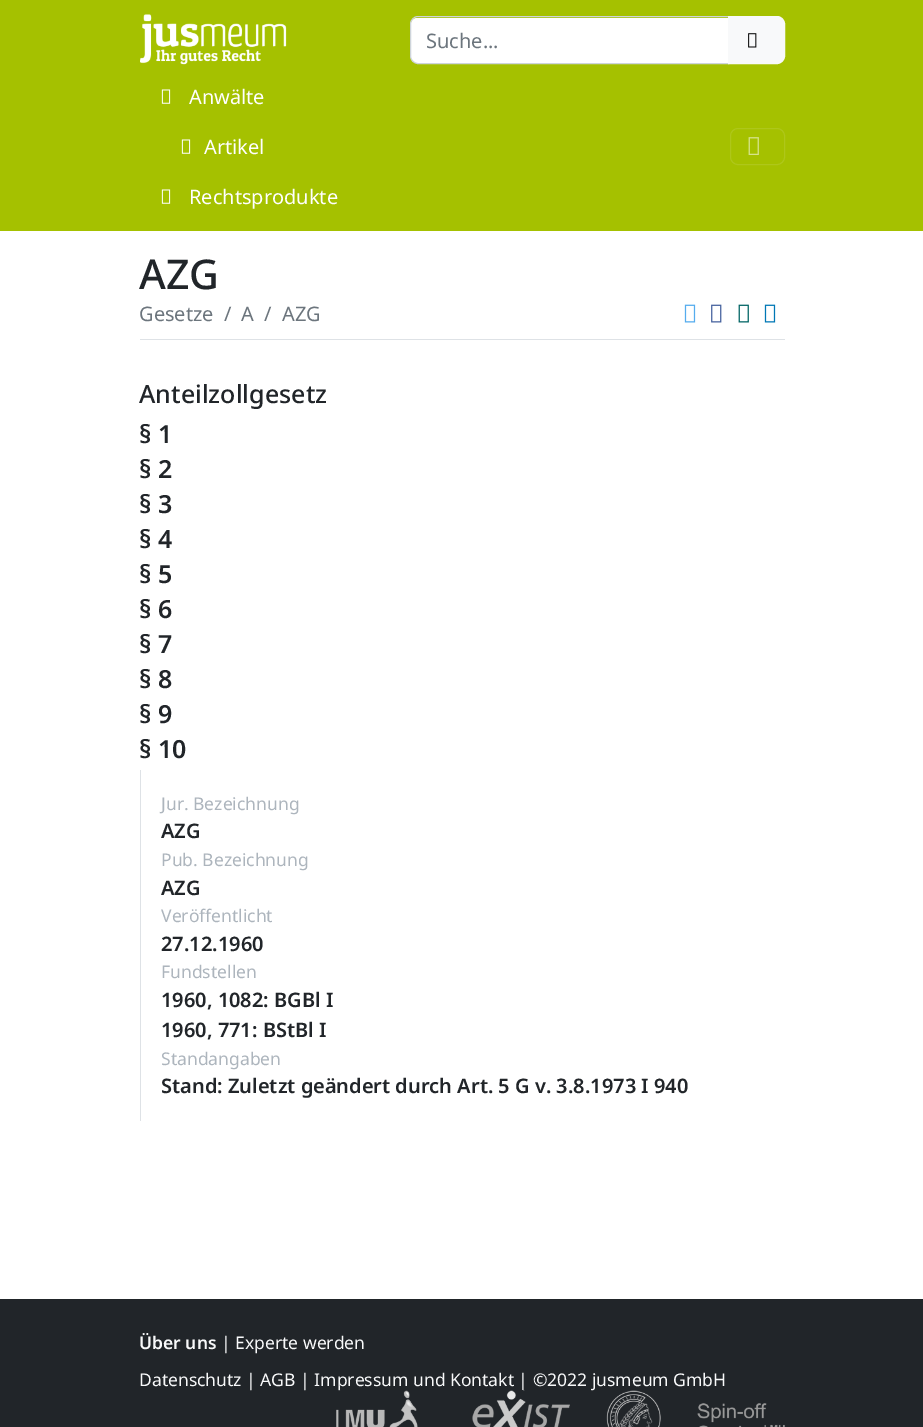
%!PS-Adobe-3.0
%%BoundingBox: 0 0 923 1427
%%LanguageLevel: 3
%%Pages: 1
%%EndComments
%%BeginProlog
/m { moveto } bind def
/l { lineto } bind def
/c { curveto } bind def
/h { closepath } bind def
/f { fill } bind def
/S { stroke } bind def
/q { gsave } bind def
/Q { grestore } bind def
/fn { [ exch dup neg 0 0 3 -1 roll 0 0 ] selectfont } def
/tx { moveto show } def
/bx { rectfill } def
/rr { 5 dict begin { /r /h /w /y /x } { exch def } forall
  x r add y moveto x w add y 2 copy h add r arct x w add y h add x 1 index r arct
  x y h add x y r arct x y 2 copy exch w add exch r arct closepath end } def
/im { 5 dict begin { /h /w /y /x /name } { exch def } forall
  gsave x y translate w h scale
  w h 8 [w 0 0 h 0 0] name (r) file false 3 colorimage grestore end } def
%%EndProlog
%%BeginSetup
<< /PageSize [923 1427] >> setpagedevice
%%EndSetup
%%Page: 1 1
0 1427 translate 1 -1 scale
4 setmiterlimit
1 setgray
0 0 923 1427 bx
0.647 0.757 0 setrgbcolor
0 0 923 231 bx
(image0.raw) 140 14 147 51 im
1 setgray
417 18 m 728 18 l 728 63 l 417 63 l 413.5 63 411 60.5 411 57 c 411 24 l 411 20.5 413.5 18 417 18 c h f
0.808 0.831 0.855 setrgbcolor
418 16.5 m 728.5 16.5 l 728.5 63.5 l 418 63.5 l 414 63.5 410.5 60 410.5 56 c 410.5 24 l 410.5 20 414 16.5 418 16.5 c h S
/NotoSans-Regular 20 fn
0.424 0.459 0.49 setrgbcolor
(Suche...) 426 48 tx
0.973 0.976 0.98 setrgbcolor
728.5 16.5 m 777 16.5 l 781 16.5 784.5 20 784.5 24 c 784.5 56 l 784.5 60 781 63.5 777 63.5 c 728.5 63.5 l h q f Q
S
(image1.raw) 748 33 9 15 im
(image2.raw) 161 89 10 15 im
1 setgray
(Anwälte) 189 104 tx
(image2.raw) 181 139 10 15 im
(Artikel) 204 154 tx
(image2.raw) 161 189 10 15 im
(Rechtsprodukte) 189 204 tx
0.682 0.78 0.102 setrgbcolor
730.5 128.5 54 36 7.5 rr S
(image3.raw) 748 137 11 18 im
/NotoSans-Medium 41 fn
0.129 0.145 0.161 setrgbcolor
(AZG) 139 289 tx
0.871 0.886 0.902 setrgbcolor
140 339 645 1 bx
/NotoSans-Regular 20 fn
0.424 0.459 0.49 setrgbcolor
(Gesetze) 139 321 tx
(/) 224 321 tx
(A) 241 321 tx
(/) 264 321 tx
(AZG) 282 321 tx
(image4.raw) 684 304 12 19 im
(image5.raw) 711 304 11 19 im
(image6.raw) 738 304 11 19 im
(image7.raw) 764 304 12 19 im
/NotoSans-Medium 25 fn
0.129 0.145 0.161 setrgbcolor
(Anteilzollgesetz) 139 403 tx
/NotoSans-SemiBold 25 fn
(§ 1) 139 443 tx
(§ 2) 139 478 tx
(§ 3) 139 513 tx
(§ 4) 139 548 tx
(§ 5) 139 583 tx
(§ 6) 139 618 tx
(§ 7) 139 653 tx
(§ 8) 139 688 tx
(§ 9) 139 723 tx
(§ 10) 139 758 tx
0.871 0.886 0.902 setrgbcolor
140 770 1 351 bx
/NotoSans-Regular 17.5 fn
0.678 0.71 0.741 setrgbcolor
(Jur. Bezeichnung) 161 810 tx
/NotoSans-SemiBold 20 fn
0.129 0.145 0.161 setrgbcolor
(AZG) 161 838 tx
/NotoSans-Regular 17.5 fn
0.678 0.71 0.741 setrgbcolor
(Pub. Bezeichnung) 161 866 tx
/NotoSans-SemiBold 20 fn
0.129 0.145 0.161 setrgbcolor
(AZG) 161 895 tx
/NotoSans-Regular 17.5 fn
0.678 0.71 0.741 setrgbcolor
(Veröffentlicht) 161 922 tx
/NotoSans-SemiBold 20 fn
0.129 0.145 0.161 setrgbcolor
(27.12.1960) 161 951 tx
/NotoSans-Regular 17.5 fn
0.678 0.71 0.741 setrgbcolor
(Fundstellen) 161 978 tx
/NotoSans-SemiBold 20 fn
0.129 0.145 0.161 setrgbcolor
(1960, 1082: BGBl I) 161 1007 tx
(1960, 771: BStBl I) 161 1037 tx
/NotoSans-Regular 17.5 fn
0.678 0.71 0.741 setrgbcolor
(Standangaben) 161 1065 tx
/NotoSans-SemiBold 20 fn
0.129 0.145 0.161 setrgbcolor
(Stand: Zuletzt geändert durch Art. 5 G v. 3.8.1973 I 940) 161 1093 tx
0 1299 923 128 bx
/NotoSans-SemiBold 17.5 fn
0.973 0.976 0.98 setrgbcolor
(Über uns) 139 1349 tx
/NotoSans-Regular 17.5 fn
(| Experte werden) 221 1349 tx
(Datenschutz | AGB | Impressum und Kontakt | ©2022 jusmeum GmbH) 139 1386 tx
(image8.raw) 336 1390 82 37 im
(image9.raw) 472 1390 98 37 im
(image10.raw) 606 1390 55 37 im
(image11.raw) 697 1403 88 24 im
showpage
%%EOF
